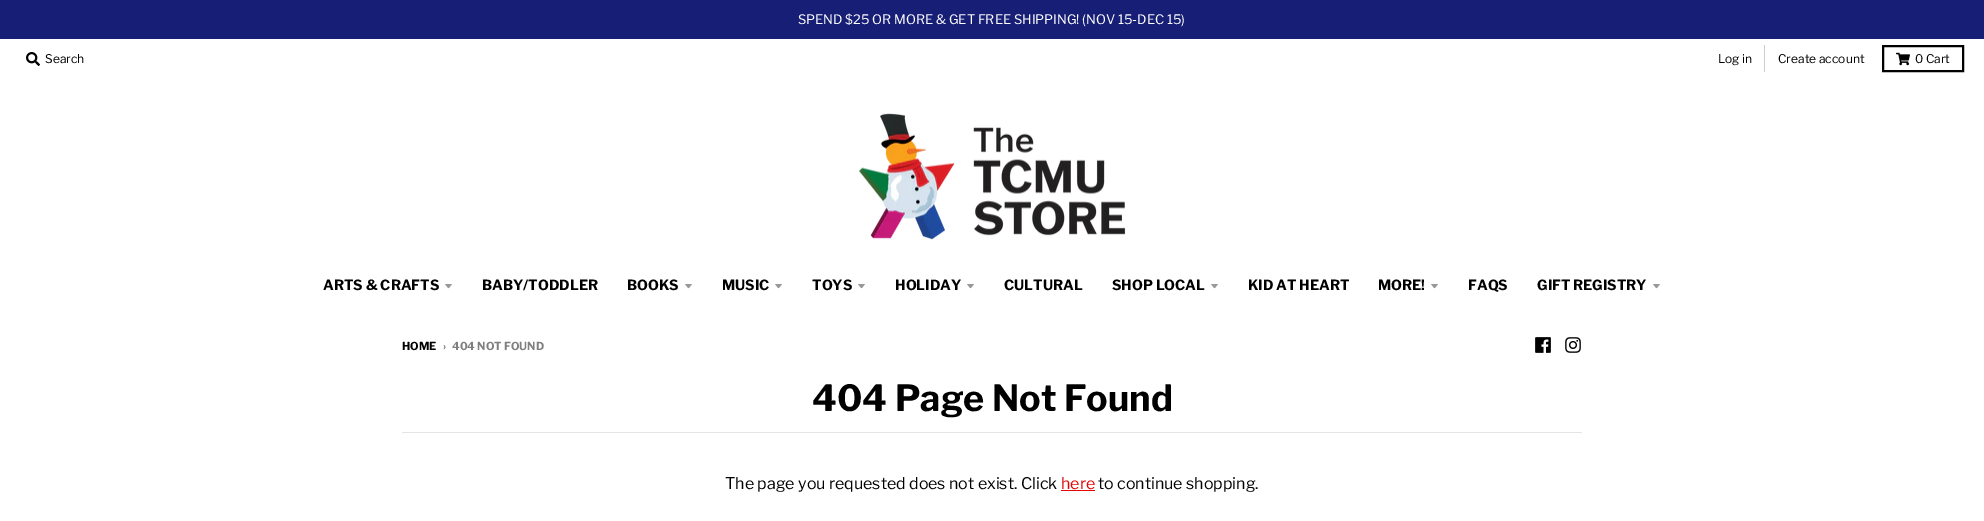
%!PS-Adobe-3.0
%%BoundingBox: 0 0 1984 521
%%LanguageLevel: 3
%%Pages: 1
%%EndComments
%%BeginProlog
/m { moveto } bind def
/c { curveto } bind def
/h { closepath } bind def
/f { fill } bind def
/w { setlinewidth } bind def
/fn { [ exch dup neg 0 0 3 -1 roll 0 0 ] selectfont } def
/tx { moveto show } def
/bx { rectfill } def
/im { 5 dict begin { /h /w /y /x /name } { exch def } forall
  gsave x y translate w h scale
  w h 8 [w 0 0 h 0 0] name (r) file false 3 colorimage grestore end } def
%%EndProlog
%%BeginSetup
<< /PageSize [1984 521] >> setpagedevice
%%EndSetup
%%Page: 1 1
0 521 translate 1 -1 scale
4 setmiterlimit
1 setgray
0 0 1984 521 bx
0.09 0.118 0.459 setrgbcolor
0 0 1984 39 bx
/LibreFranklin-Regular 13 fn
1 setgray
(SPEND $25 OR MORE & GET FREE SHIPPING! \(NOV 15-DEC 15\)) 798 24 tx
(image0.raw) 26 52 14 14 im
/LibreFranklin-Regular 12 fn
0 setgray
(Search) 45 63 tx
0.8 setgray
1764 45 1 27 bx
0 setgray
(Log in) 1718 63 tx
(Create account) 1778 63 tx
2 w
1883 46 80 25 rectstroke
(image1.raw) 1896 52 14 14 im
(0 Cart) 1915 63 tx
(image2.raw) 859 113 267 127 im
/LibreFranklin-Bold 14 fn
(ARTS & CRAFTS) 323 290 tx
0.6 setgray
445 284 m 449.5 289.5 447.5 289.5 452 284 c h f
0 setgray
(BABY/TODDLER) 482 290 tx
(BOOKS) 627 290 tx
0.6 setgray
685 284 m 689.5 289.5 687.5 289.5 692 284 c h f
0 setgray
(MUSIC) 722 290 tx
0.6 setgray
775 284 m 779.5 289.5 777.5 289.5 782 284 c h f
0 setgray
(TOYS) 812 290 tx
0.6 setgray
858 284 m 862.5 289.5 860.5 289.5 865 284 c h f
0 setgray
(HOLIDAY) 895 290 tx
0.6 setgray
967 284 m 971.5 289.5 969.5 289.5 974 284 c h f
0 setgray
(CULTURAL) 1004 290 tx
(SHOP LOCAL) 1112 290 tx
0.6 setgray
1211 284 m 1215.5 289.5 1213.5 289.5 1218 284 c h f
0 setgray
(KID AT HEART) 1248 290 tx
(MORE!) 1378 290 tx
0.6 setgray
1431 284 m 1435.5 289.5 1433.5 289.5 1438 284 c h f
0 setgray
(FAQS) 1468 290 tx
(GIFT REGISTRY) 1537 290 tx
0.6 setgray
1653 284 m 1657.5 289.5 1655.5 289.5 1660 284 c h f
/LibreFranklin-Bold 11 fn
0 setgray
(HOME) 402 350 tx
0.498 setgray
(›) 443 350 tx
(404 NOT FOUND) 452 350 tx
(image3.raw) 1535 337 16 16 im
(image4.raw) 1565 337 16 16 im
0.898 setgray
402 432 1180 1 bx
/LibreFranklin-Bold 36 fn
0 setgray
(404 Page Not Found) 812 411 tx
/LibreFranklin-Regular 16 fn
(The page you requested does not exist. Click) 725 489 tx
0.894 0.024 0.024 setrgbcolor
(here) 1061 489 tx
1061 490 34 1 bx
0 setgray
(to continue shopping.) 1098 489 tx
showpage
%%EOF
